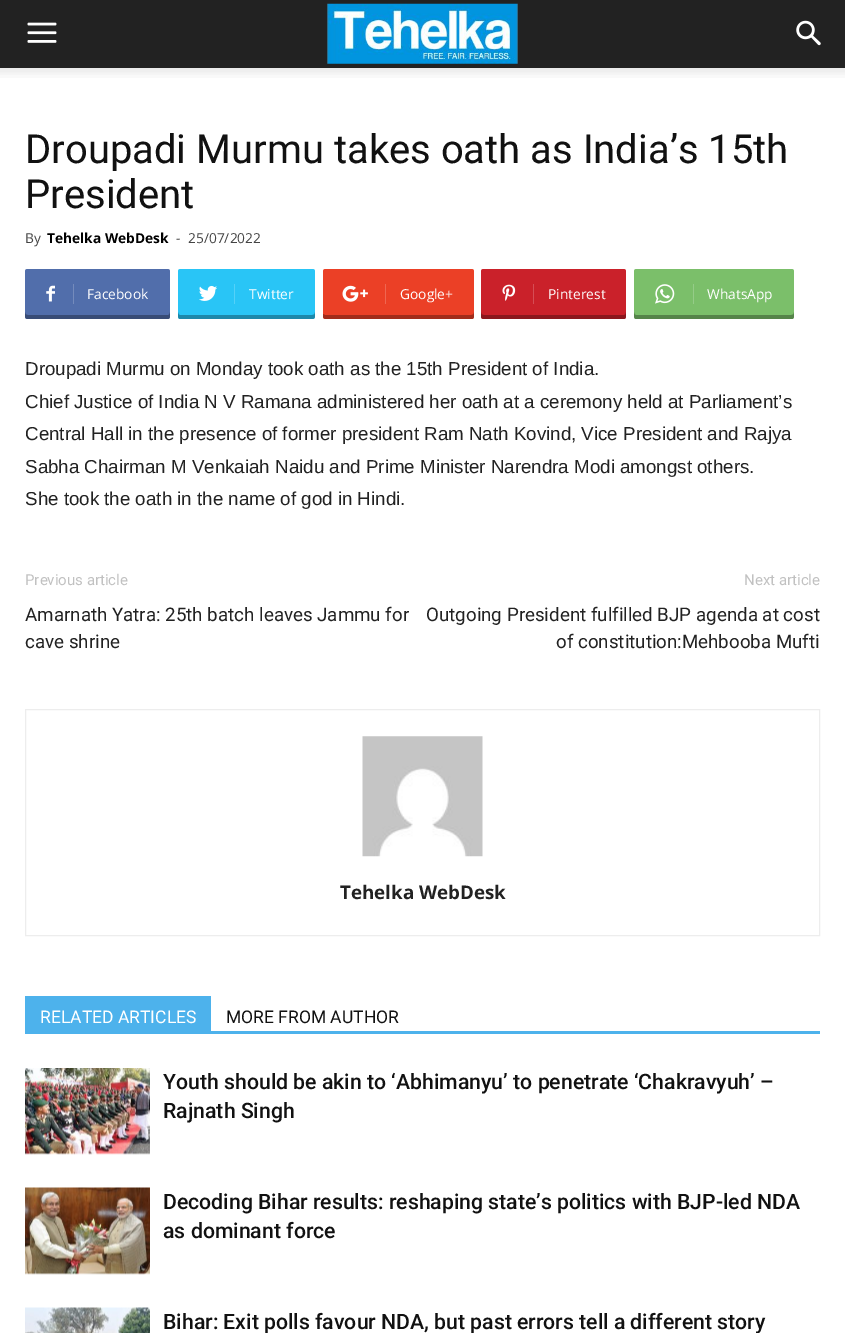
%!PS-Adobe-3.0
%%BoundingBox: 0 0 845 1333
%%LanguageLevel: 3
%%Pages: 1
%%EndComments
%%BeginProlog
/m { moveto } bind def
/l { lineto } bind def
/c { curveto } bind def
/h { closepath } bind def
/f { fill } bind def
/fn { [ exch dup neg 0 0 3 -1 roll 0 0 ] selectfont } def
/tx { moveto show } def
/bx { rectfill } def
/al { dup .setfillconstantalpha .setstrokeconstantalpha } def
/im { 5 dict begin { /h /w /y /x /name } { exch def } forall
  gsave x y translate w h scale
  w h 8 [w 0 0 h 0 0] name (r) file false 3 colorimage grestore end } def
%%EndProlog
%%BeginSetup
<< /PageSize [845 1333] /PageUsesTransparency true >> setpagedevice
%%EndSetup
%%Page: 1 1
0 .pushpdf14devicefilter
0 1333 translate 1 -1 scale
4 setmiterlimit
1 setgray
0 0 845 1333 bx
0.133 setgray
0 0 845 68 bx
(image0.raw) 27 22 30 21 im
(image1.raw) 327 3 191 61 im
(image2.raw) 796 20 25 26 im
(image3.raw) 0 68 845 10 im
/Roboto-Regular 40 fn
0.067 setgray
(Droupadi Murmu takes oath as India’s 15th) 25 163 tx
(President) 25 208 tx
/OpenSans-Regular 13.75 fn
0.267 setgray
(By) 25 243 tx
/OpenSans-Bold 13.75 fn
0 setgray
(Tehelka WebDesk) 47 243 tx
/OpenSans-Regular 13.75 fn
0.267 setgray
(-) 176 243 tx
(25/07/2022) 188 243 tx
0.318 0.431 0.671 setrgbcolor
73 269 m 167.5 269 l 169 269 170 270 170 271.5 c 170 316.5 l 170 318 169 319 167.5 319 c 73 319 l h f
0.31 al
0 setgray
73 315 m 73 319 l 168 319 l 169 319 170 318 170 316 c 170 312 l 170 314 169 315 168 315 c h f
1 al
0.318 0.431 0.671 setrgbcolor
27.5 269 m 76 269 l 76 319 l 27.5 319 l 26 319 25 318 25 316.5 c 25 271.5 l 25 270 26 269 27.5 269 c h f
0.31 al
0 setgray
25 312 m 25 316 l 25 318 26 319 28 319 c 76 319 l 76 315 l 28 315 l 26 315 25 314 25 312 c h f
1 al
(image4.raw) 46 285 9 17 im
0.455 0.545 0.737 setrgbcolor
73 284 1 20 bx
1 setgray
(Facebook) 87 299 tx
0.161 0.773 0.965 setrgbcolor
234 269 m 312.5 269 l 314 269 315 270 315 271.5 c 315 316.5 l 315 318 314 319 312.5 319 c 234 319 l h f
0.31 al
0 setgray
234 315 m 234 319 l 312 319 l 314 319 315 318 315 316 c 315 312 l 315 314 314 315 312 315 c h f
1 al
0.161 0.773 0.965 setrgbcolor
180.5 269 m 239 269 l 239 319 l 180.5 319 l 179 319 178 318 178 316.5 c 178 271.5 l 178 270 179 269 180.5 269 c h f
0.31 al
0 setgray
178 312 m 178 316 l 178 318 179 319 180 319 c 239 319 l 239 315 l 180 315 l 179 315 178 314 178 312 c h f
1 al
(image5.raw) 199 285 18 16 im
0.329 0.82 0.973 setrgbcolor
234 284 1 20 bx
1 setgray
(Twitter) 249 299 tx
0.922 0.251 0.149 setrgbcolor
385 269 m 471.5 269 l 473 269 474 270 474 271.5 c 474 316.5 l 474 318 473 319 471.5 319 c 385 319 l h f
0.31 al
0 setgray
385 315 m 385 319 l 472 319 l 473 319 474 318 474 316 c 474 312 l 474 314 473 315 471 315 c h f
1 al
0.922 0.251 0.149 setrgbcolor
325.5 269 m 389 269 l 389 319 l 325.5 319 l 324 319 323 318 323 316.5 c 323 271.5 l 323 270 324 269 325.5 269 c h f
0.31 al
0 setgray
323 314 m 323 316 l 323 318 324 319 326 319 c 389 319 l 389 315 l 325 315 l h f
1 al
(image6.raw) 342 285 26 17 im
0.937 0.4 0.318 setrgbcolor
385 284 1 20 bx
1 setgray
(Google+) 400 299 tx
0.792 0.129 0.165 setrgbcolor
533 269 m 623.5 269 l 625 269 626 270 626 271.5 c 626 316.5 l 626 318 625 319 623.5 319 c 533 319 l h f
0.31 al
0 setgray
533 315 m 533 319 l 624 319 l 625 319 626 318 626 316 c 626 312 l 626 314 625 315 624 315 c h f
1 al
0.792 0.129 0.165 setrgbcolor
483.5 269 m 536 269 l 536 319 l 483.5 319 l 482 319 481 318 481 316.5 c 481 271.5 l 481 270 482 269 483.5 269 c h f
0.31 al
0 setgray
481 312 m 481 316 l 481 318 482 319 484 319 c 536 319 l 536 315 l 484 315 l 482 315 481 314 481 312 c h f
1 al
(image7.raw) 502 284 14 17 im
0.835 0.302 0.333 setrgbcolor
533 284 1 20 bx
1 setgray
(Pinterest) 548 299 tx
0.482 0.749 0.416 setrgbcolor
693 269 m 791.5 269 l 793 269 794 270 794 271.5 c 794 316.5 l 794 318 793 319 791.5 319 c 693 319 l h f
0.31 al
0 setgray
693 315 m 693 319 l 792 319 l 793 319 794 318 794 316 c 794 312 l 794 314 793 315 791 315 c h f
1 al
0.482 0.749 0.416 setrgbcolor
636.5 269 m 696 269 l 696 319 l 636.5 319 l 635 319 634 318 634 316.5 c 634 271.5 l 634 270 635 269 636.5 269 c h f
0.31 al
0 setgray
634 312 m 634 316 l 634 318 635 319 636 319 c 696 319 l 696 315 l 636 315 l 635 315 634 314 634 312 c h f
1 al
(image8.raw) 655 284 20 20 im
0.584 0.8 0.533 setrgbcolor
693 284 1 20 bx
1 setgray
(WhatsApp) 707 299 tx
/LiberationSans-Regular 18.75 fn
0.133 setgray
(Droupadi Murmu on Monday took oath as the 15th President of India.) 25 375 tx
(Chief Justice of India N V Ramana administered her oath at a ceremony held at Parliament’s) 25 408 tx
(Central Hall in the presence of former president Ram Nath Kovind, Vice President and Rajya) 25 440 tx
(Sabha Chairman M Venkaiah Naidu and Prime Minister Narendra Modi amongst others.) 25 473 tx
(She took the oath in the name of god in Hindi.) 25 505 tx
/Roboto-Regular 15 fn
0.757 setgray
(Previous article) 25 585 tx
/Roboto-Regular 18.75 fn
0.133 setgray
(Amarnath Yatra: 25th batch leaves Jammu for) 25 621 tx
(cave shrine) 25 648 tx
/Roboto-Regular 15 fn
0.757 setgray
(Next article) 744 585 tx
/Roboto-Regular 18.75 fn
0.133 setgray
(Outgoing President fulfilled BJP agenda at cost) 426 621 tx
(of constitution:Mehbooba Mufti) 556 648 tx
0.929 setgray
25.5 709.5 794 226 rectstroke
(image9.raw) 362 736 121 121 im
/OpenSans-Bold 18.75 fn
0.133 setgray
(Tehelka WebDesk) 340 899 tx
0.302 0.698 0.925 setrgbcolor
25 1031 795 3 bx
25 996 186 35 bx
/Roboto-Regular 17.5 fn
1 setgray
(RELATED ARTICLES) 40 1023 tx
0.067 setgray
(MORE FROM AUTHOR) 226 1023 tx
(image10.raw) 25 1068 125 87 im
/Roboto-Medium 21.25 fn
(Youth should be akin to ‘Abhimanyu’ to penetrate ‘Chakravyuh’ –) 163 1089 tx
(Rajnath Singh) 163 1118 tx
(image11.raw) 25 1187 125 88 im
(Decoding Bihar results: reshaping state’s politics with BJP-led NDA) 163 1209 tx
(as dominant force) 163 1238 tx
(image12.raw) 25 1307 125 26 im
(Bihar: Exit polls favour NDA, but past errors tell a different story) 163 1329 tx
.poppdf14devicefilter showpage
%%EOF
